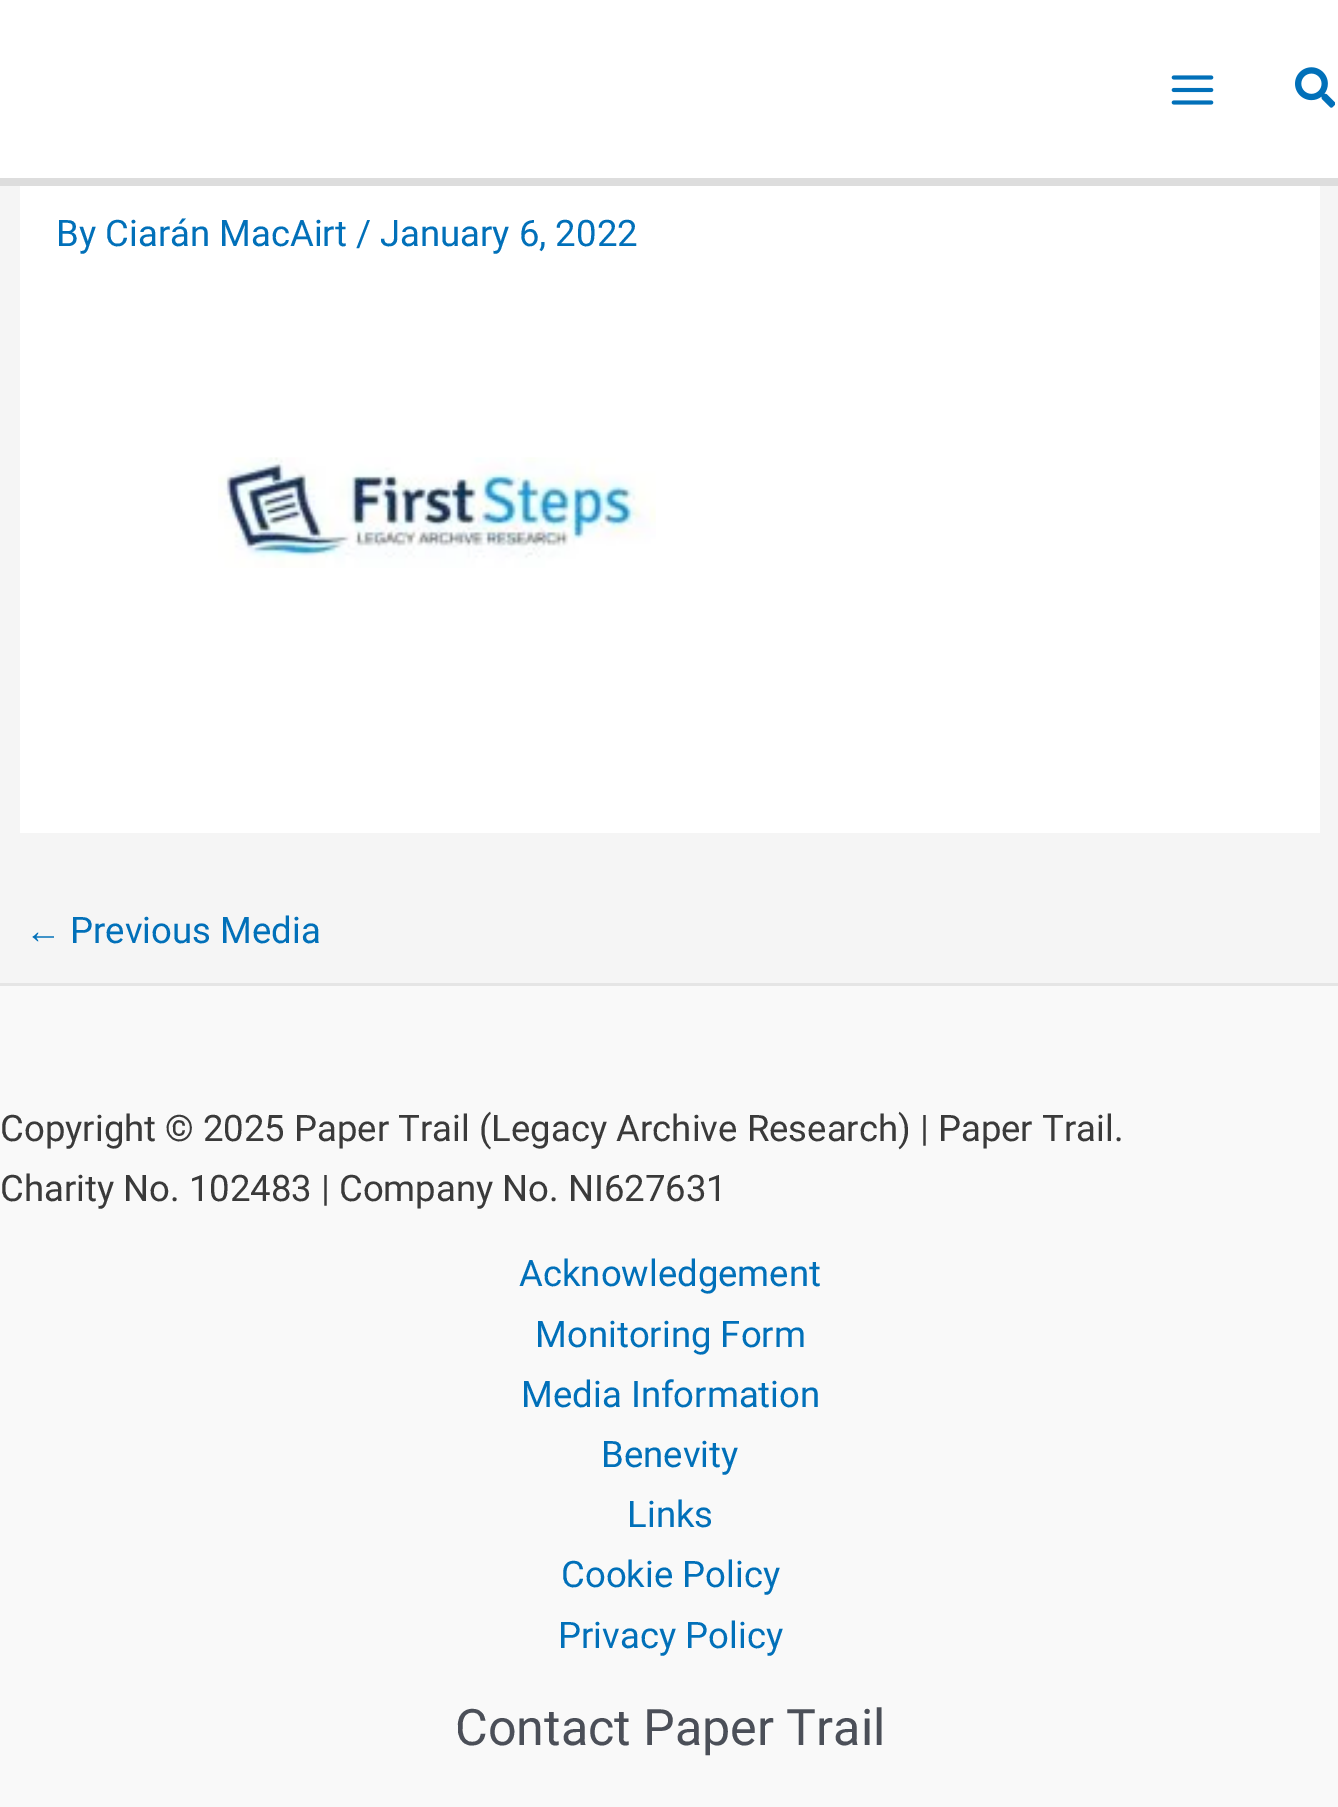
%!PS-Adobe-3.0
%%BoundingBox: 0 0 1338 1807
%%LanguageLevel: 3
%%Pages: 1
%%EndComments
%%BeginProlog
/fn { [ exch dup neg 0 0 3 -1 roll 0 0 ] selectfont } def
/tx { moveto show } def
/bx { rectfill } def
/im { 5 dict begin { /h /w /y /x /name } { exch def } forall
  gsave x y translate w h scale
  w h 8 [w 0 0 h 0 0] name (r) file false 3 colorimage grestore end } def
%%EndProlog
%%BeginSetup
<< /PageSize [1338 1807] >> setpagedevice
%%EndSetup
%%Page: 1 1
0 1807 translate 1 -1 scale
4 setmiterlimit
0.961 setgray
0 0 1338 1807 bx
1 setgray
0 0 1338 178 bx
0.867 setgray
0 178 1338 8 bx
(image0.raw) 1171 75 43 30 im
(image1.raw) 1295 67 40 41 im
1 setgray
20 186 1300 647 bx
/Roboto-Regular 36.5 fn
0.004 0.439 0.725 setrgbcolor
(By Ciarán MacAirt / January 6, 2022) 56 246 tx
(image2.raw) 218 457 438 111 im
/LiberationSans-Regular 36.5 fn
(←) 25 943 tx
/Roboto-Regular 36.5 fn
(Previous Media) 70 943 tx
0.976 setgray
0 986 1338 821 bx
0.898 setgray
0 983 1338 3 bx
0.227 setgray
(Copyright © 2025 Paper Trail \(Legacy Archive Research\) | Paper Trail.) 0 1141 tx
(Charity No. 102483 | Company No. NI627631) 0 1201 tx
0.004 0.439 0.725 setrgbcolor
(Acknowledgement) 519 1286 tx
(Monitoring Form) 535 1347 tx
(Media Information) 521 1407 tx
(Benevity) 601 1467 tx
(Links) 627 1527 tx
(Cookie Policy) 561 1587 tx
(Privacy Policy) 558 1648 tx
/Roboto-Regular 50.25 fn
0.294 0.31 0.345 setrgbcolor
(Contact Paper Trail) 455 1745 tx
showpage
%%EOF
